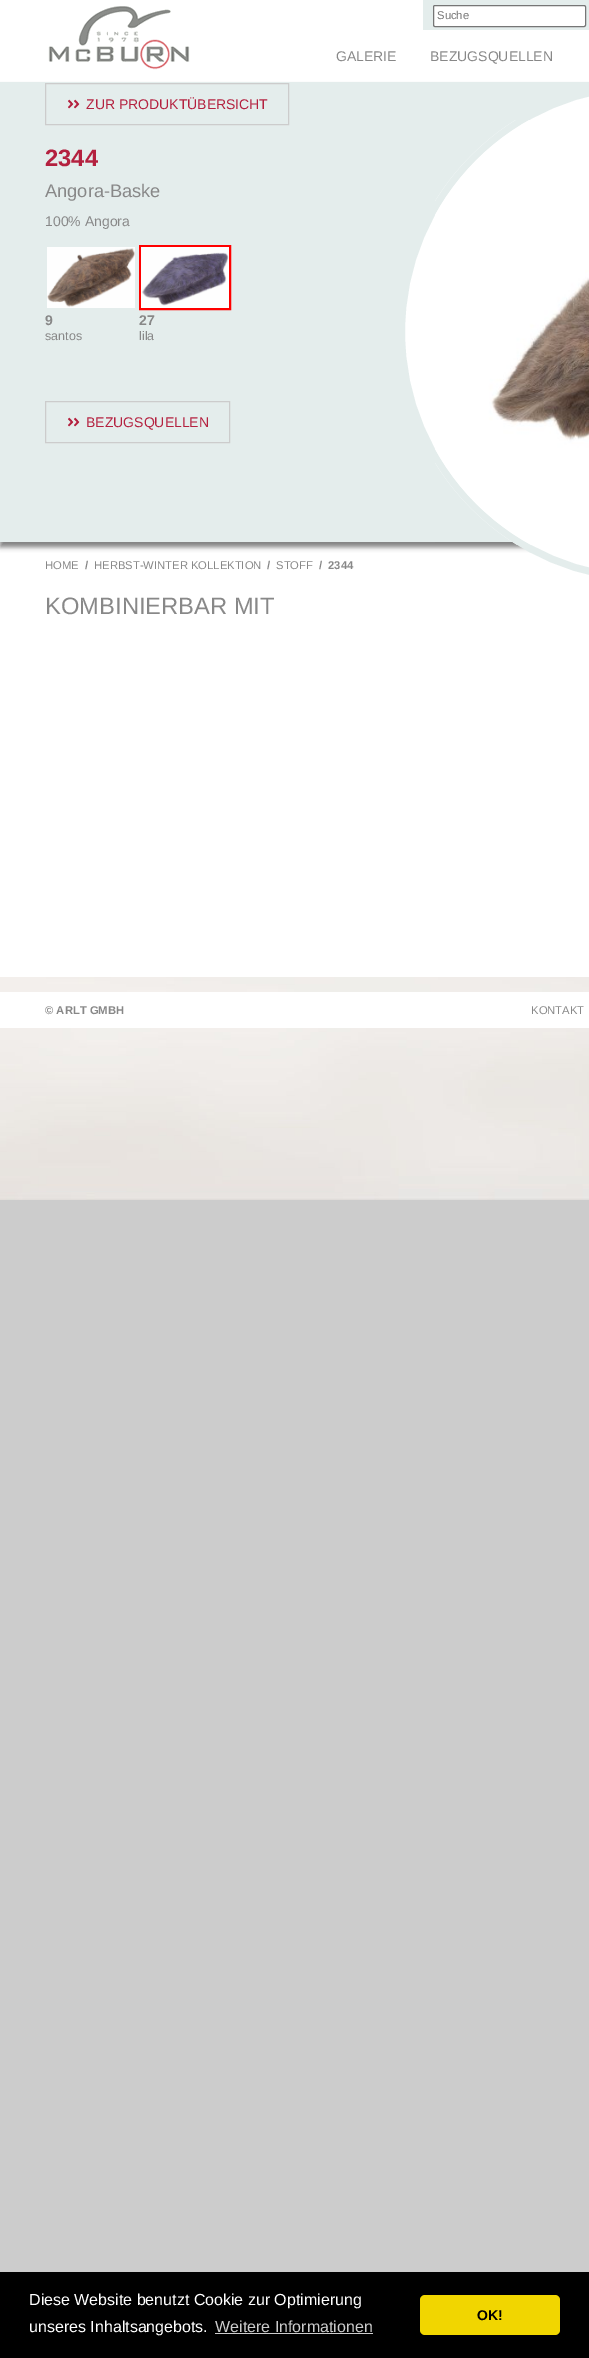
%!PS-Adobe-3.0
%%BoundingBox: 0 0 589 2358
%%LanguageLevel: 3
%%Pages: 1
%%EndComments
%%BeginProlog
/f { fill } bind def
/S { stroke } bind def
/q { gsave } bind def
/Q { grestore } bind def
/w { setlinewidth } bind def
/fn { [ exch dup neg 0 0 3 -1 roll 0 0 ] selectfont } def
/tx { moveto show } def
/bx { rectfill } def
/al { dup .setfillconstantalpha .setstrokeconstantalpha } def
/rr { 5 dict begin { /r /h /w /y /x } { exch def } forall
  x r add y moveto x w add y 2 copy h add r arct x w add y h add x 1 index r arct
  x y h add x y r arct x y 2 copy exch w add exch r arct closepath end } def
/sh { 12 dict begin { /a /b /q /h /w /y /x } { exch def } forall gsave /was 0 def
  9 -2 -9 { dup b mul 4 div /e exch def 1 sub .425 mul 2.718 exch exp 1 add a .99 .min exch div /now exch def
    1 1 now sub 1 was sub div sub al /was now def
    w h .min e 2 mul add 0 gt { x e sub y e sub w e 2 mul add h e 2 mul add
      q e add b .6 mul add w h .min 2 div e add .min 0 .max rr fill } if } for grestore end } def
/im { 5 dict begin { /h /w /y /x /name } { exch def } forall
  gsave x y translate w h scale
  w h 8 [w 0 0 h 0 0] name (r) file false 3 colorimage grestore end } def
%%EndProlog
%%BeginSetup
<< /PageSize [589 2358] /PageUsesTransparency true >> setpagedevice
%%EndSetup
%%Page: 1 1
0 .pushpdf14devicefilter
0 2358 translate 1 -1 scale
4 setmiterlimit
0.8 setgray
0 0 589 2358 bx
(image0.raw) 0 977 589 223 im
1 setgray
0 0 589 82 bx
(image1.raw) 48 6 142 64 im
0.894 0.929 0.925 setrgbcolor
423 0 166 30 bx
1 setgray
433.5 5.5 152 21 1.5 rr q f Q
0.463 setgray
S
/LiberationSans-Regular 11.25 fn
0.459 setgray
(Suche) 437 19 tx
/LiberationSans-Regular 14 fn
0.533 setgray
(GALERIE) 336 61 tx
(BEZUGSQUELLEN) 430 61 tx
1 setgray
0 542 589 435 bx
0 setgray
0 87 589 460 0 2.5 0.5 sh
0.894 0.929 0.925 setrgbcolor
0 82 589 460 bx
(image2.raw) 68 99 12 10 im
0.8 setgray
45.5 83.5 243 41 rectstroke
0.706 0.129 0.247 setrgbcolor
(ZUR PRODUKTÜBERSICHT) 86 109 tx
/LiberationSans-Bold 23.75 fn
(2344) 45 166 tx
/LiberationSans-Regular 18.25 fn
0.533 setgray
(Angora-Baske) 45 197 tx
/LiberationSans-Regular 14 fn
(100% Angora) 45 226 tx
(image3.raw) 47 247 88 61 im
/LiberationSans-Bold 14 fn
(9) 45 325 tx
/LiberationSans-Regular 12.5 fn
(santos) 45 340 tx
1 0 0 setrgbcolor
2 w
140 246 90 63 rectstroke
(image4.raw) 141 247 88 61 im
/LiberationSans-Bold 14 fn
0.533 setgray
(27) 139 325 tx
/LiberationSans-Regular 12.5 fn
(lila) 139 340 tx
(image2.raw) 68 417 12 10 im
0.8 setgray
1 w
45.5 401.5 184 41 rectstroke
/LiberationSans-Regular 14 fn
0.706 0.129 0.247 setrgbcolor
(BEZUGSQUELLEN) 86 427 tx
1 setgray
401.5 85.5 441 493 246.5 rr q f Q
0.894 0.929 0.925 setrgbcolor
7 w
S
(image5.raw) 435 120 154 425 im
/LiberationSans-Regular 11.25 fn
0.533 setgray
(HOME) 45 569 tx
/LiberationSans-Bold 11.25 fn
(/) 85 569 tx
/LiberationSans-Regular 11.25 fn
(HERBST-WINTER KOLLEKTION) 94 569 tx
/LiberationSans-Bold 11.25 fn
(/) 267 569 tx
/LiberationSans-Regular 11.25 fn
(STOFF) 276 569 tx
/LiberationSans-Bold 11.25 fn
(/) 319 569 tx
(2344) 328 569 tx
/LiberationSans-Regular 23.75 fn
(KOMBINIERBAR MIT) 45 614 tx
1 setgray
0 992 589 36 bx
/LiberationSans-Bold 11.25 fn
0.533 setgray
(© ARLT GMBH) 45 1014 tx
/LiberationSans-Regular 11.25 fn
(KONTAKT) 531 1014 tx
0 setgray
0 2272 589 86 bx
/LiberationSans-Regular 16 fn
1 setgray
(Diese Website benutzt Cookie zur Optimierung) 29 2305 tx
(unseres Inhaltsangebots.) 29 2332 tx
0.8 setgray
(Weitere Informationen) 215 2332 tx
215 2333 158 1 bx
0.945 0.839 0 setrgbcolor
420 2295 140 40 5 rr f
/LiberationSans-Bold 14 fn
0 setgray
(OK!) 477 2320 tx
.poppdf14devicefilter showpage
%%EOF
